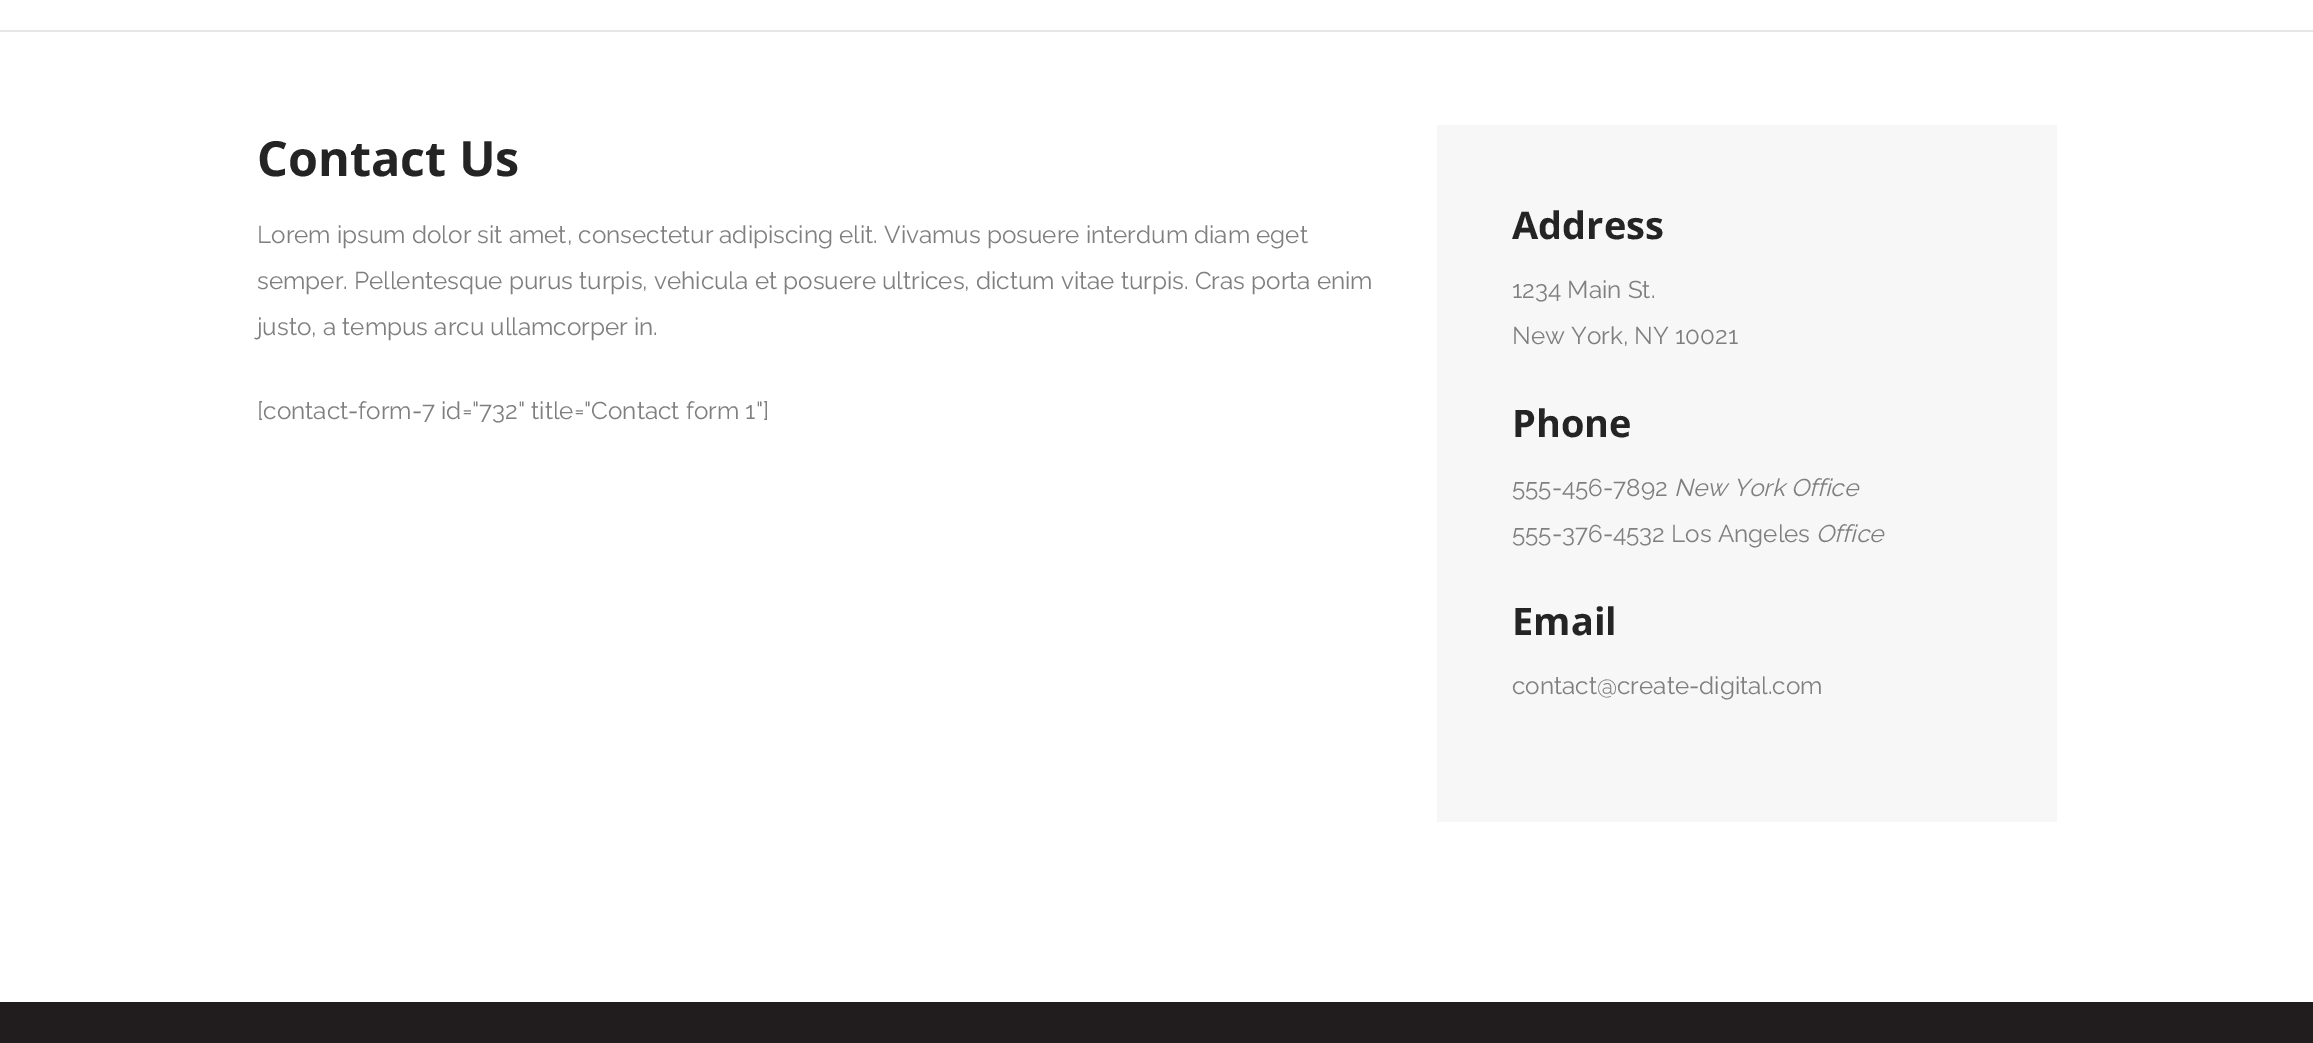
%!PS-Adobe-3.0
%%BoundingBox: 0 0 2313 1043
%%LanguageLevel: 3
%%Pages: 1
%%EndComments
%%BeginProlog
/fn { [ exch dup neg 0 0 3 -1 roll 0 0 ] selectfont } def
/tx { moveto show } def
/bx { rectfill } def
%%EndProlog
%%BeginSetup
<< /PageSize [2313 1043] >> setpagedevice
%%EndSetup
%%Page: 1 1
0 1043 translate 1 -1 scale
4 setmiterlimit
1 setgray
0 0 2313 1043 bx
0.902 setgray
0 30 2313 2 bx
/OpenSans-Bold 48.5 fn
0.141 setgray
(Contact Us) 257 176 tx
/Raleway-Thin 24.3 fn
0.498 setgray
(Lorem ipsum dolor sit amet, consectetur adipiscing elit. Vivamus posuere interdum diam eget) 257 243 tx
(semper. Pellentesque purus turpis, vehicula et posuere ultrices, dictum vitae turpis. Cras porta enim) 257 289 tx
(justo, a tempus arcu ullamcorper in.) 257 335 tx
([contact-form-7 id="732" title="Contact form 1"]) 257 419 tx
0.969 setgray
1437 125 620 697 bx
/OpenSans-Bold 38 fn
0.141 setgray
(Address) 1512 239 tx
/Raleway-Thin 24.3 fn
0.498 setgray
(1234 Main St.) 1512 298 tx
(New York, NY 10021) 1512 344 tx
/OpenSans-Bold 38 fn
0.141 setgray
(Phone) 1512 437 tx
/Raleway-Thin 24.3 fn
0.498 setgray
(555-456-7892) 1512 496 tx
/Raleway-ThinItalic 24.3 fn
(New York Office) 1674 496 tx
/Raleway-Thin 24.3 fn
(555-376-4532 Los Angeles) 1512 542 tx
/Raleway-ThinItalic 24.3 fn
(Office) 1816 542 tx
/OpenSans-Bold 38 fn
0.141 setgray
(Email) 1512 635 tx
/Raleway-Thin 24.3 fn
0.498 setgray
(contact@create-digital.com) 1512 694 tx
0.129 0.114 0.118 setrgbcolor
0 1002 2313 41 bx
showpage
%%EOF
